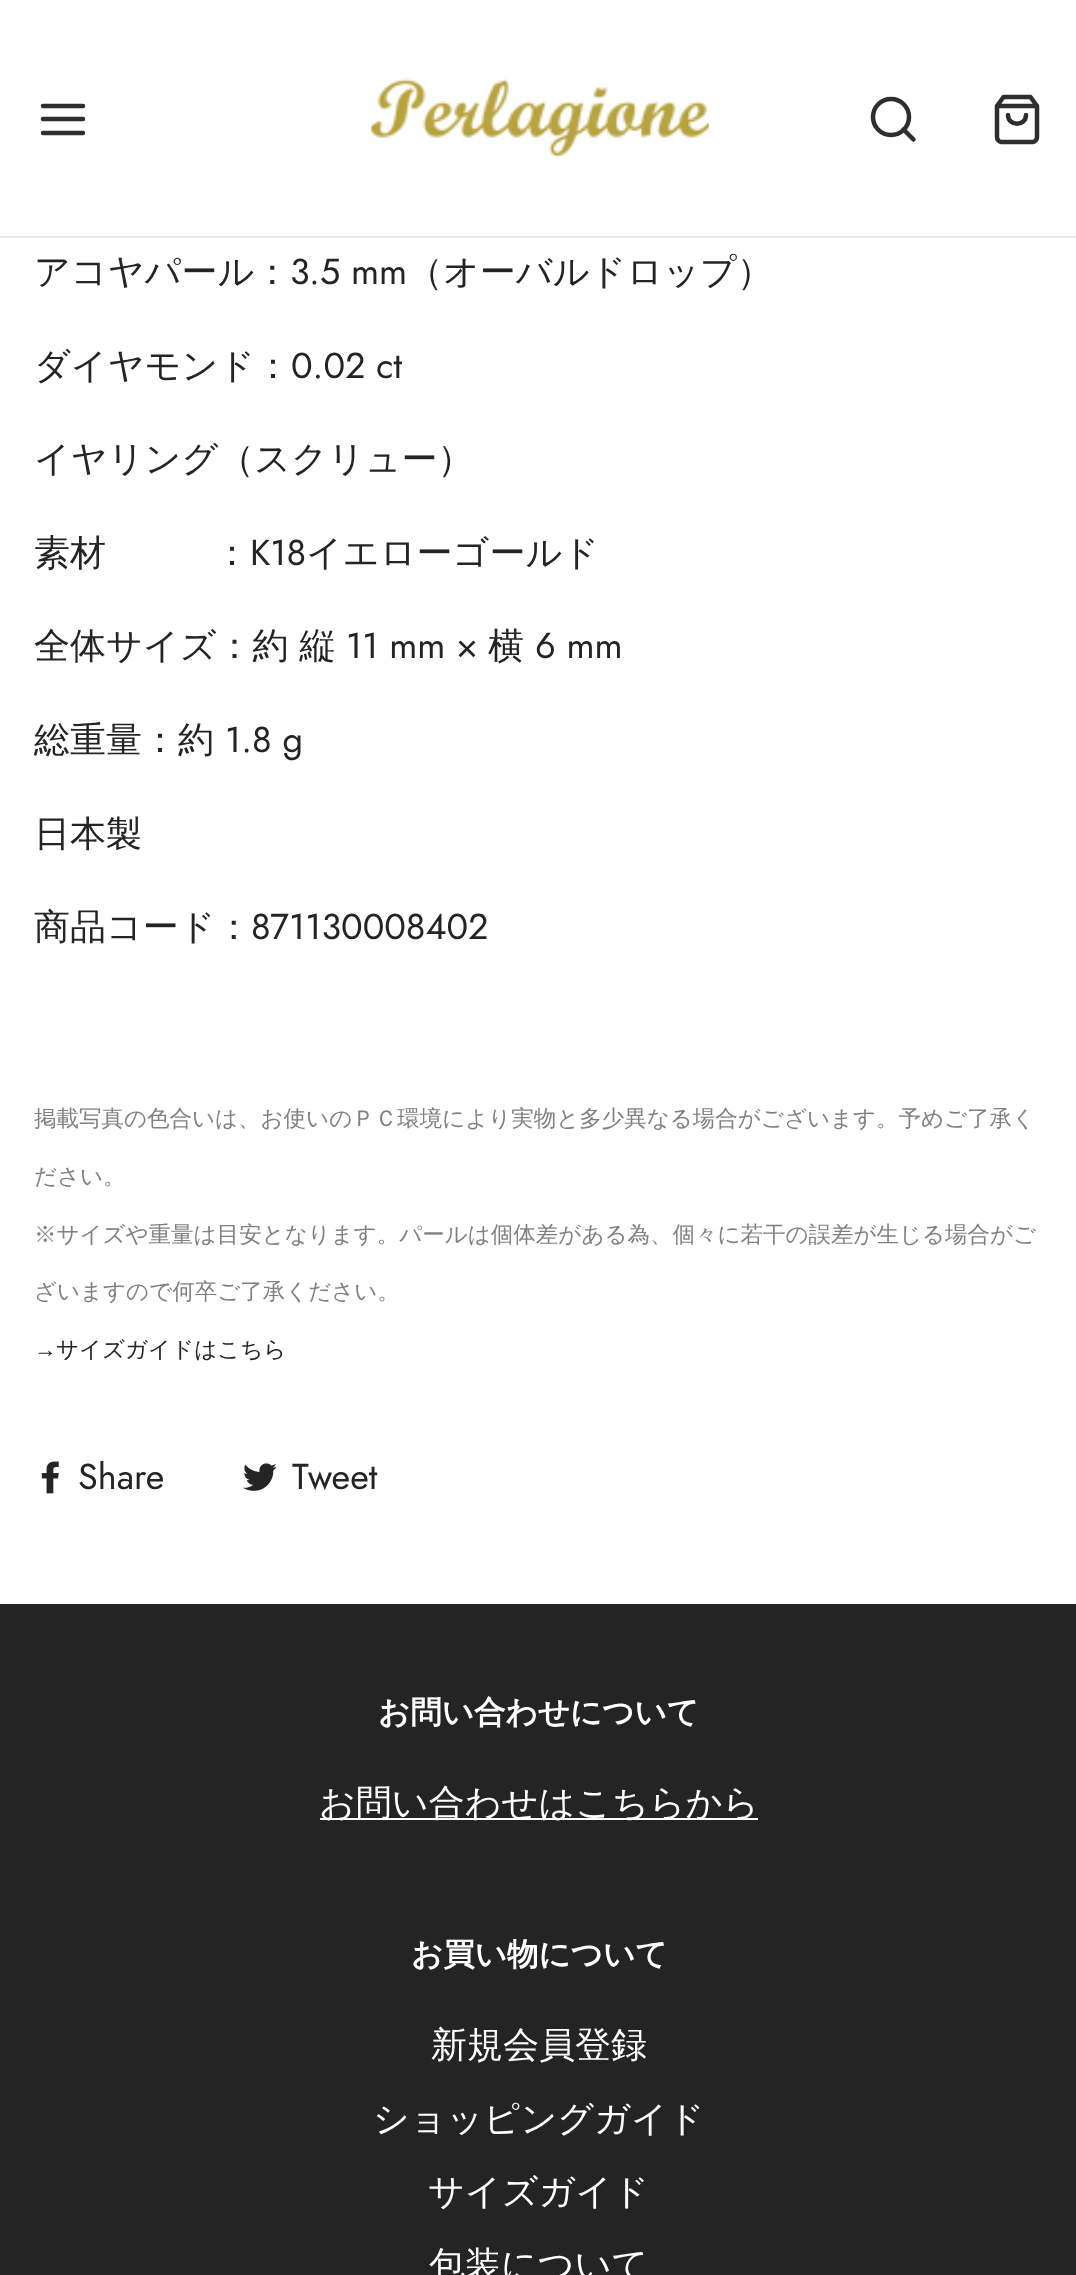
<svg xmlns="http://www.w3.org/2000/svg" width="1076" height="2275">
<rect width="100%" height="100%" fill="#fff"/>
<rect y="236" width="1076" height="2" fill="#eaeaea"/>
<path d="M43 119h40m-40-13h40m-40 27h40" fill="none" stroke="#2e2e2e" stroke-width="4.5" stroke-linecap="round" stroke-linejoin="round"/>
<image x="370" y="78" width="339" height="80" href="media/1.png"/>
<circle cx="891" cy="117" r="18" fill="none" stroke="#2e2e2e" stroke-width="4.5"/>
<path d="M913.5 139.5l-10-10" fill="none" stroke="#2e2e2e" stroke-width="4.5" stroke-linecap="round" stroke-linejoin="round"/>
<path d="M1003.5 97l-6.5 9v31c0 2.5 2 5 4 5h32c2 0 4-2.5 4-5v-31l-6.5-9zm-6.5 9h40m-11 9c0 11.5-18 11.5-18 0" fill="none" stroke="#2e2e2e" stroke-width="4.5" stroke-linecap="round" stroke-linejoin="round"/>
<text x="34" y="284" style="font-family:WenQuanYi Zen Hei;font-size:36px;font-weight:500;fill:#242424">アコヤパール：</text>
<text x="290" y="284" style="font-family:Jost;font-size:36px;fill:#242424">3.5 mm</text>
<text x="407" y="284" style="font-family:WenQuanYi Zen Hei;font-size:36px;font-weight:500;fill:#242424">（オーバルドロップ）</text>
<text x="34" y="378" style="font-family:WenQuanYi Zen Hei;font-size:36px;font-weight:500;fill:#242424">ダイヤモンド：</text>
<text x="291" y="378" style="font-family:Jost;font-size:36px;fill:#242424">0.02 ct</text>
<text x="34" y="471" style="font-family:WenQuanYi Zen Hei;font-size:36px;font-weight:500;fill:#242424">イヤリング（スクリュー）</text>
<text x="34" y="565" style="font-family:WenQuanYi Zen Hei;font-size:36px;font-weight:500;fill:#242424">素材　　　：</text>
<text x="250" y="565" style="font-family:Jost;font-size:36px;fill:#242424">K18</text>
<text x="306" y="565" style="font-family:WenQuanYi Zen Hei;font-size:36px;font-weight:500;fill:#242424">イエローゴールド</text>
<text x="34" y="658" style="font-family:WenQuanYi Zen Hei;font-size:36px;font-weight:500;fill:#242424">全体サイズ：約 縦</text>
<text x="346" y="658" style="font-family:Jost;font-size:36px;fill:#242424">11 mm ×</text>
<text x="488" y="658" style="font-family:WenQuanYi Zen Hei;font-size:36px;font-weight:500;fill:#242424">横</text>
<text x="535" y="658" style="font-family:Jost;font-size:36px;fill:#242424">6 mm</text>
<text x="34" y="752" style="font-family:WenQuanYi Zen Hei;font-size:36px;font-weight:500;fill:#242424">総重量：約</text>
<text x="225" y="752" style="font-family:Jost;font-size:36px;fill:#242424">1.8 g</text>
<text x="34" y="846" style="font-family:WenQuanYi Zen Hei;font-size:36px;font-weight:500;fill:#242424">日本製</text>
<text x="34" y="939" style="font-family:WenQuanYi Zen Hei;font-size:36px;font-weight:500;fill:#242424">商品コード：</text>
<text x="251" y="939" style="font-family:Jost;font-size:36px;fill:#242424">871130008402</text>
<text x="34" y="1126" style="font-family:WenQuanYi Zen Hei;font-size:22.5px;font-weight:500;fill:#808080">掲載写真の色合いは、お使いのＰＣ環境により実物と多少異なる場合がございます。予めご了承く</text>
<text x="34" y="1184" style="font-family:WenQuanYi Zen Hei;font-size:22.5px;font-weight:500;fill:#808080">ださい。</text>
<text x="34" y="1242" style="font-family:WenQuanYi Zen Hei;font-size:22.5px;font-weight:500;fill:#808080">※サイズや重量は目安となります。パールは個体差がある為、個々に若干の誤差が生じる場合がご</text>
<text x="34" y="1299" style="font-family:WenQuanYi Zen Hei;font-size:22.5px;font-weight:500;fill:#808080">ざいますので何卒ご了承ください。</text>
<text x="34" y="1357" style="font-family:Liberation Sans;font-size:22.5px;fill:#242424">→</text>
<text x="56" y="1357" style="font-family:WenQuanYi Zen Hei;font-size:22.5px;font-weight:500;fill:#242424">サイズガイドはこちら</text>
<image x="41" y="1461" width="18" height="33" href="media/2.png"/>
<text x="78" y="1489" style="font-family:Jost;font-size:36px;fill:#242424">Share</text>
<image x="243" y="1463" width="34" height="28" href="media/3.png"/>
<text x="292" y="1489" style="font-family:Jost;font-size:36px;fill:#242424">Tweet</text>
<rect y="1604" width="1076" height="671" fill="#242424"/>
<text x="378" y="1723" style="font-family:WenQuanYi Zen Hei;font-size:31.5px;font-weight:bold;fill:#fff">お問い合わせについて</text>
<rect x="320" y="1818" width="438" height="2" fill="#fff"/>
<text x="319" y="1815" style="font-family:WenQuanYi Zen Hei;font-size:36px;font-weight:500;fill:#fff">お問い合わせはこちらから</text>
<text x="411" y="1965" style="font-family:WenQuanYi Zen Hei;font-size:31.5px;font-weight:bold;fill:#fff">お買い物について</text>
<text x="431" y="2057" style="font-family:WenQuanYi Zen Hei;font-size:36px;font-weight:500;fill:#fff">新規会員登録</text>
<text x="373" y="2131" style="font-family:WenQuanYi Zen Hei;font-size:36px;font-weight:500;fill:#fff">ショッピングガイド</text>
<text x="428" y="2204" style="font-family:WenQuanYi Zen Hei;font-size:36px;font-weight:500;fill:#fff">サイズガイド</text>
<text x="429" y="2277" style="font-family:WenQuanYi Zen Hei;font-size:36px;font-weight:500;fill:#fff">包装について</text>
</svg>
